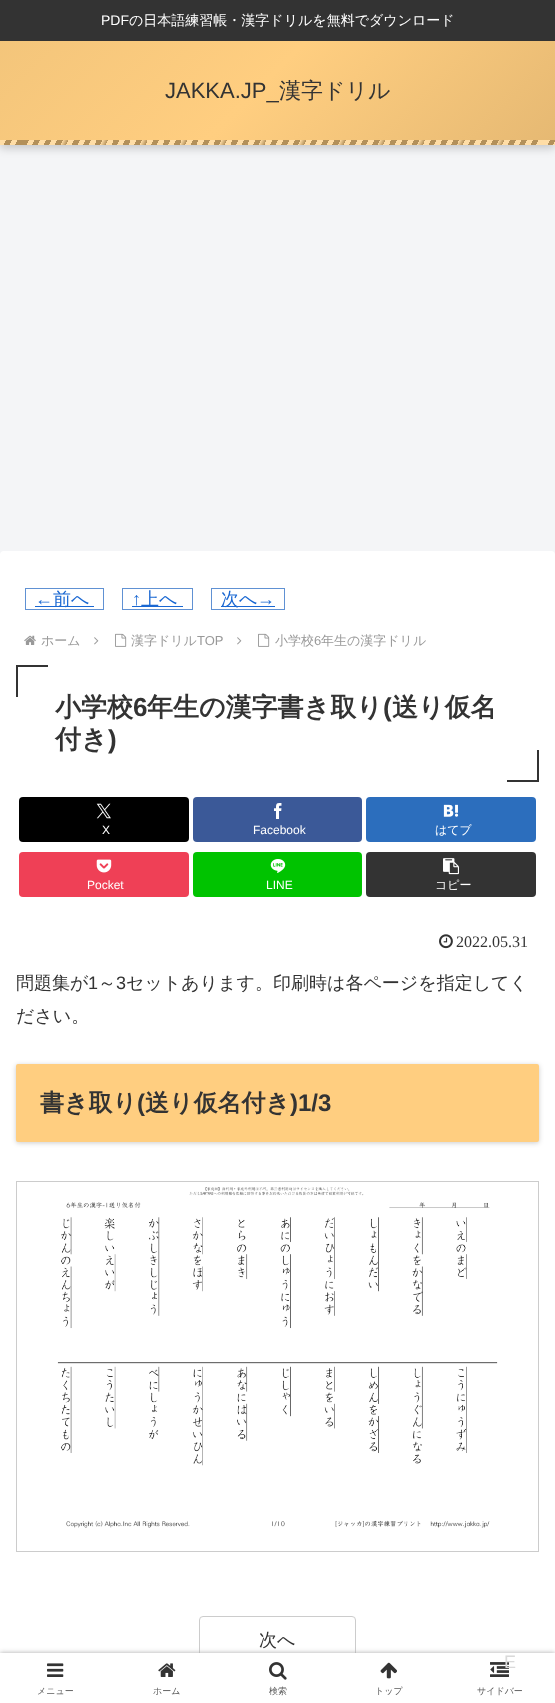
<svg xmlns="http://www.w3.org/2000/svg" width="555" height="1703">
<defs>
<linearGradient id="g1" gradientUnits="userSpaceOnUse" x1="104" y1="-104" x2="451" y2="244"><stop offset="0" stop-color="#f2c47a"/><stop offset="0.5" stop-color="#ffce80"/><stop offset="1" stop-color="#e6b973"/></linearGradient>
<linearGradient id="g2" gradientUnits="userSpaceOnUse" x1="49" y1="36" x2="514" y2="253"><stop offset="0" stop-color="#ffdda6"/><stop offset="0.01" stop-color="#ffdda6"/><stop offset="0.01" stop-color="#b3905a"/><stop offset="0.02" stop-color="#b3905a"/><stop offset="0.02" stop-color="#ffdda6"/><stop offset="0.03" stop-color="#ffdda6"/><stop offset="0.03" stop-color="#b3905a"/><stop offset="0.04" stop-color="#b3905a"/><stop offset="0.04" stop-color="#ffdda6"/><stop offset="0.04" stop-color="#b3905a"/><stop offset="0.05" stop-color="#b3905a"/><stop offset="0.05" stop-color="#ffdda6"/><stop offset="0.06" stop-color="#ffdda6"/><stop offset="0.06" stop-color="#b3905a"/><stop offset="0.07" stop-color="#b3905a"/><stop offset="0.07" stop-color="#ffdda6"/><stop offset="0.08" stop-color="#ffdda6"/><stop offset="0.08" stop-color="#b3905a"/><stop offset="0.09" stop-color="#b3905a"/><stop offset="0.09" stop-color="#ffdda6"/><stop offset="0.1" stop-color="#ffdda6"/><stop offset="0.1" stop-color="#b3905a"/><stop offset="0.11" stop-color="#b3905a"/><stop offset="0.11" stop-color="#ffdda6"/><stop offset="0.12" stop-color="#b3905a"/><stop offset="0.12" stop-color="#ffdda6"/><stop offset="0.13" stop-color="#ffdda6"/><stop offset="0.13" stop-color="#b3905a"/><stop offset="0.14" stop-color="#b3905a"/><stop offset="0.14" stop-color="#ffdda6"/><stop offset="0.15" stop-color="#ffdda6"/><stop offset="0.15" stop-color="#b3905a"/><stop offset="0.16" stop-color="#b3905a"/><stop offset="0.16" stop-color="#ffdda6"/><stop offset="0.17" stop-color="#ffdda6"/><stop offset="0.17" stop-color="#b3905a"/><stop offset="0.18" stop-color="#b3905a"/><stop offset="0.18" stop-color="#ffdda6"/><stop offset="0.19" stop-color="#b3905a"/><stop offset="0.19" stop-color="#ffdda6"/><stop offset="0.2" stop-color="#ffdda6"/><stop offset="0.2" stop-color="#b3905a"/><stop offset="0.21" stop-color="#b3905a"/><stop offset="0.21" stop-color="#ffdda6"/><stop offset="0.22" stop-color="#ffdda6"/><stop offset="0.22" stop-color="#b3905a"/><stop offset="0.23" stop-color="#b3905a"/><stop offset="0.23" stop-color="#ffdda6"/><stop offset="0.24" stop-color="#ffdda6"/><stop offset="0.24" stop-color="#b3905a"/><stop offset="0.25" stop-color="#b3905a"/><stop offset="0.25" stop-color="#ffdda6"/><stop offset="0.26" stop-color="#b3905a"/><stop offset="0.26" stop-color="#ffdda6"/><stop offset="0.27" stop-color="#ffdda6"/><stop offset="0.27" stop-color="#b3905a"/><stop offset="0.28" stop-color="#b3905a"/><stop offset="0.28" stop-color="#ffdda6"/><stop offset="0.29" stop-color="#ffdda6"/><stop offset="0.29" stop-color="#b3905a"/><stop offset="0.3" stop-color="#b3905a"/><stop offset="0.3" stop-color="#ffdda6"/><stop offset="0.31" stop-color="#ffdda6"/><stop offset="0.31" stop-color="#b3905a"/><stop offset="0.32" stop-color="#b3905a"/><stop offset="0.32" stop-color="#ffdda6"/><stop offset="0.33" stop-color="#b3905a"/><stop offset="0.33" stop-color="#ffdda6"/><stop offset="0.34" stop-color="#ffdda6"/><stop offset="0.34" stop-color="#b3905a"/><stop offset="0.35" stop-color="#b3905a"/><stop offset="0.35" stop-color="#ffdda6"/><stop offset="0.36" stop-color="#ffdda6"/><stop offset="0.36" stop-color="#b3905a"/><stop offset="0.37" stop-color="#b3905a"/><stop offset="0.37" stop-color="#ffdda6"/><stop offset="0.38" stop-color="#ffdda6"/><stop offset="0.38" stop-color="#b3905a"/><stop offset="0.39" stop-color="#b3905a"/><stop offset="0.39" stop-color="#ffdda6"/><stop offset="0.4" stop-color="#b3905a"/><stop offset="0.4" stop-color="#ffdda6"/><stop offset="0.41" stop-color="#ffdda6"/><stop offset="0.41" stop-color="#b3905a"/><stop offset="0.42" stop-color="#b3905a"/><stop offset="0.42" stop-color="#ffdda6"/><stop offset="0.43" stop-color="#ffdda6"/><stop offset="0.43" stop-color="#b3905a"/><stop offset="0.44" stop-color="#b3905a"/><stop offset="0.44" stop-color="#ffdda6"/><stop offset="0.45" stop-color="#ffdda6"/><stop offset="0.45" stop-color="#b3905a"/><stop offset="0.46" stop-color="#b3905a"/><stop offset="0.46" stop-color="#ffdda6"/><stop offset="0.47" stop-color="#b3905a"/><stop offset="0.47" stop-color="#ffdda6"/><stop offset="0.48" stop-color="#ffdda6"/><stop offset="0.48" stop-color="#b3905a"/><stop offset="0.49" stop-color="#b3905a"/><stop offset="0.49" stop-color="#ffdda6"/><stop offset="0.5" stop-color="#ffdda6"/><stop offset="0.5" stop-color="#b3905a"/><stop offset="0.51" stop-color="#b3905a"/><stop offset="0.51" stop-color="#ffdda6"/><stop offset="0.52" stop-color="#ffdda6"/><stop offset="0.52" stop-color="#b3905a"/><stop offset="0.53" stop-color="#b3905a"/><stop offset="0.53" stop-color="#ffdda6"/><stop offset="0.54" stop-color="#b3905a"/><stop offset="0.54" stop-color="#ffdda6"/><stop offset="0.55" stop-color="#ffdda6"/><stop offset="0.55" stop-color="#b3905a"/><stop offset="0.56" stop-color="#b3905a"/><stop offset="0.56" stop-color="#ffdda6"/><stop offset="0.57" stop-color="#ffdda6"/><stop offset="0.57" stop-color="#b3905a"/><stop offset="0.58" stop-color="#b3905a"/><stop offset="0.58" stop-color="#ffdda6"/><stop offset="0.59" stop-color="#ffdda6"/><stop offset="0.59" stop-color="#b3905a"/><stop offset="0.6" stop-color="#b3905a"/><stop offset="0.6" stop-color="#ffdda6"/><stop offset="0.61" stop-color="#b3905a"/><stop offset="0.61" stop-color="#ffdda6"/><stop offset="0.62" stop-color="#ffdda6"/><stop offset="0.62" stop-color="#b3905a"/><stop offset="0.63" stop-color="#b3905a"/><stop offset="0.63" stop-color="#ffdda6"/><stop offset="0.64" stop-color="#ffdda6"/><stop offset="0.64" stop-color="#b3905a"/><stop offset="0.65" stop-color="#b3905a"/><stop offset="0.65" stop-color="#ffdda6"/><stop offset="0.66" stop-color="#ffdda6"/><stop offset="0.66" stop-color="#b3905a"/><stop offset="0.67" stop-color="#b3905a"/><stop offset="0.67" stop-color="#ffdda6"/><stop offset="0.68" stop-color="#b3905a"/><stop offset="0.68" stop-color="#ffdda6"/><stop offset="0.69" stop-color="#ffdda6"/><stop offset="0.69" stop-color="#b3905a"/><stop offset="0.7" stop-color="#b3905a"/><stop offset="0.7" stop-color="#ffdda6"/><stop offset="0.71" stop-color="#ffdda6"/><stop offset="0.71" stop-color="#b3905a"/><stop offset="0.72" stop-color="#b3905a"/><stop offset="0.72" stop-color="#ffdda6"/><stop offset="0.73" stop-color="#ffdda6"/><stop offset="0.73" stop-color="#b3905a"/><stop offset="0.74" stop-color="#b3905a"/><stop offset="0.74" stop-color="#ffdda6"/><stop offset="0.75" stop-color="#b3905a"/><stop offset="0.75" stop-color="#ffdda6"/><stop offset="0.76" stop-color="#ffdda6"/><stop offset="0.76" stop-color="#b3905a"/><stop offset="0.77" stop-color="#b3905a"/><stop offset="0.77" stop-color="#ffdda6"/><stop offset="0.78" stop-color="#ffdda6"/><stop offset="0.78" stop-color="#b3905a"/><stop offset="0.79" stop-color="#b3905a"/><stop offset="0.79" stop-color="#ffdda6"/><stop offset="0.8" stop-color="#ffdda6"/><stop offset="0.8" stop-color="#b3905a"/><stop offset="0.81" stop-color="#b3905a"/><stop offset="0.81" stop-color="#ffdda6"/><stop offset="0.82" stop-color="#b3905a"/><stop offset="0.82" stop-color="#ffdda6"/><stop offset="0.83" stop-color="#ffdda6"/><stop offset="0.83" stop-color="#b3905a"/><stop offset="0.84" stop-color="#b3905a"/><stop offset="0.84" stop-color="#ffdda6"/><stop offset="0.85" stop-color="#ffdda6"/><stop offset="0.85" stop-color="#b3905a"/><stop offset="0.86" stop-color="#b3905a"/><stop offset="0.86" stop-color="#ffdda6"/><stop offset="0.87" stop-color="#ffdda6"/><stop offset="0.87" stop-color="#b3905a"/><stop offset="0.88" stop-color="#b3905a"/><stop offset="0.88" stop-color="#ffdda6"/><stop offset="0.89" stop-color="#b3905a"/><stop offset="0.89" stop-color="#ffdda6"/><stop offset="0.9" stop-color="#ffdda6"/><stop offset="0.9" stop-color="#b3905a"/><stop offset="0.91" stop-color="#b3905a"/><stop offset="0.91" stop-color="#ffdda6"/><stop offset="0.92" stop-color="#ffdda6"/><stop offset="0.92" stop-color="#b3905a"/><stop offset="0.93" stop-color="#b3905a"/><stop offset="0.93" stop-color="#ffdda6"/><stop offset="0.94" stop-color="#ffdda6"/><stop offset="0.94" stop-color="#b3905a"/><stop offset="0.95" stop-color="#b3905a"/><stop offset="0.95" stop-color="#ffdda6"/><stop offset="0.96" stop-color="#ffdda6"/><stop offset="0.96" stop-color="#b3905a"/><stop offset="0.96" stop-color="#ffdda6"/><stop offset="0.97" stop-color="#ffdda6"/><stop offset="0.97" stop-color="#b3905a"/><stop offset="0.98" stop-color="#b3905a"/><stop offset="0.98" stop-color="#ffdda6"/><stop offset="0.99" stop-color="#ffdda6"/><stop offset="0.99" stop-color="#b3905a"/><stop offset="1" stop-color="#b3905a"/></linearGradient>
</defs>
<rect width="100%" height="100%" fill="#f4f5f7"/>
<rect y="3" width="555" height="145" fill="#00000033" filter="blur(5px)"/>
<rect y="41" width="555" height="99" fill="url(#g1)"/>
<rect width="555" height="41" fill="#333"/>
<text x="101" y="25" style="font-family:Liberation Sans;font-size:14px;fill:#fff">PDF</text>
<text x="129" y="25" style="font-family:WenQuanYi Zen Hei;font-size:14px;font-weight:500;fill:#fff">の日本語練習帳・漢字ドリルを無料でダウンロード</text>
<text x="165" y="98" style="font-family:Liberation Sans;font-size:22px;fill:#333">JAKKA.JP_</text>
<text x="279" y="98" style="font-family:WenQuanYi Zen Hei;font-size:22px;font-weight:500;fill:#333">漢字ドリル</text>
<rect y="140" width="555" height="5" fill="url(#g2)"/>
<rect y="551" width="555" height="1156" rx="4" fill="#fff"/>
<rect x="25.5" y="588.5" width="78" height="21" fill="none" stroke="#6091d3"/>
<text x="35" y="605" style="font-family:Liberation Sans;font-size:18px;fill:#1967d2">←</text>
<rect x="35" y="606" width="59" height="1" fill="#1967d2"/>
<text x="53" y="605" style="font-family:WenQuanYi Zen Hei;font-size:18px;font-weight:500;fill:#1967d2">前へ</text>
<rect x="122.5" y="588.5" width="70" height="21" fill="none" stroke="#6091d3"/>
<text x="132" y="605" style="font-family:Liberation Sans;font-size:18px;fill:#1967d2">↑</text>
<rect x="132" y="606" width="51" height="1" fill="#1967d2"/>
<text x="141" y="605" style="font-family:WenQuanYi Zen Hei;font-size:18px;font-weight:500;fill:#1967d2">上へ</text>
<rect x="211.5" y="588.5" width="73" height="21" fill="none" stroke="#6091d3"/>
<rect x="221" y="606" width="54" height="1" fill="#1967d2"/>
<text x="221" y="605" style="font-family:WenQuanYi Zen Hei;font-size:18px;font-weight:500;fill:#1967d2">次へ</text>
<text x="257" y="605" style="font-family:Liberation Sans;font-size:18px;fill:#1967d2">→</text>
<image x="24" y="635" width="12" height="10" href="media/1.png"/>
<text x="41" y="645" style="font-family:WenQuanYi Zen Hei;font-size:13px;font-weight:500;fill:#999">ホーム</text>
<image x="94" y="637" width="5" height="8" href="media/2.png"/>
<image x="115" y="633" width="12" height="14" href="media/3.png"/>
<text x="131" y="645" style="font-family:WenQuanYi Zen Hei;font-size:13px;font-weight:500;fill:#999">漢字ドリル</text>
<text x="197" y="645" style="font-family:Liberation Sans;font-size:13px;fill:#999">TOP</text>
<image x="237" y="637" width="5" height="8" href="media/2.png"/>
<image x="258" y="633" width="12" height="14" href="media/3.png"/>
<text x="275" y="645" style="font-family:WenQuanYi Zen Hei;font-size:13px;font-weight:500;fill:#999">小学校</text>
<text x="314" y="645" style="font-family:Liberation Sans;font-size:13px;fill:#999">6</text>
<text x="321" y="645" style="font-family:WenQuanYi Zen Hei;font-size:13px;font-weight:500;fill:#999">年生の漢字ドリル</text>
<rect x="16" y="665" width="32" height="2" fill="#333"/>
<rect x="16" y="665" width="2" height="32" fill="#333"/>
<text x="55" y="716" style="font-family:WenQuanYi Zen Hei;font-size:26px;font-weight:bold;fill:#333">小学校</text>
<text x="133" y="716" style="font-family:Liberation Sans;font-size:26px;font-weight:bold;fill:#333">6</text>
<text x="147" y="716" style="font-family:WenQuanYi Zen Hei;font-size:26px;font-weight:bold;fill:#333">年生の漢字書き取り</text>
<text x="383" y="716" style="font-family:Liberation Sans;font-size:26px;font-weight:bold;fill:#333">(</text>
<text x="392" y="716" style="font-family:WenQuanYi Zen Hei;font-size:26px;font-weight:bold;fill:#333">送り仮名</text>
<text x="55" y="748" style="font-family:WenQuanYi Zen Hei;font-size:26px;font-weight:bold;fill:#333">付き</text>
<text x="108" y="748" style="font-family:Liberation Sans;font-size:26px;font-weight:bold;fill:#333">)</text>
<rect x="537" y="750" width="2" height="32" fill="#333"/>
<rect x="507" y="780" width="32" height="2" fill="#333"/>
<rect x="19" y="797" width="170" height="45" rx="4" fill="#000"/>
<image x="96" y="803" width="15" height="16" href="media/4.png"/>
<text x="102" y="834" style="font-family:Liberation Sans;font-size:12px;fill:#fff">X</text>
<rect x="193" y="797" width="169" height="45" rx="4" fill="#3b5998"/>
<image x="274" y="803" width="8" height="16" href="media/5.png"/>
<text x="253" y="834" style="font-family:Liberation Sans;font-size:12px;fill:#fff">Facebook</text>
<rect x="366" y="797" width="170" height="45" rx="4" fill="#2c6ebd"/>
<image x="443" y="804" width="16" height="13" href="media/6.png"/>
<text x="435" y="834" style="font-family:WenQuanYi Zen Hei;font-size:12px;font-weight:500;fill:#fff">はてブ</text>
<rect x="19" y="852" width="170" height="45" rx="4" fill="#ef4056"/>
<image x="96" y="859" width="16" height="14" href="media/7.png"/>
<text x="87" y="889" style="font-family:Liberation Sans;font-size:12px;fill:#fff">Pocket</text>
<rect x="193" y="852" width="169" height="45" rx="4" fill="#00c300"/>
<image x="270" y="859" width="16" height="14" href="media/8.png"/>
<text x="266" y="889" style="font-family:Liberation Sans;font-size:12px;fill:#fff">LINE</text>
<rect x="366" y="852" width="170" height="45" rx="4" fill="#333"/>
<image x="443" y="858" width="16" height="17" href="media/9.png"/>
<text x="435" y="889" style="font-family:WenQuanYi Zen Hei;font-size:12px;font-weight:500;fill:#fff">コピー</text>
<image x="439" y="934" width="14" height="15" href="media/10.png"/>
<text x="456" y="947" style="font-family:Liberation Serif;font-size:16px;fill:#333">2022.05.31</text>
<text x="16" y="989" style="font-family:WenQuanYi Zen Hei;font-size:18px;font-weight:500;fill:#333">問題集が</text>
<text x="88" y="989" style="font-family:Liberation Sans;font-size:18px;fill:#333">1</text>
<text x="98" y="989" style="font-family:WenQuanYi Zen Hei;font-size:18px;font-weight:500;fill:#333">～</text>
<text x="116" y="989" style="font-family:Liberation Sans;font-size:18px;fill:#333">3</text>
<text x="126" y="989" style="font-family:WenQuanYi Zen Hei;font-size:18px;font-weight:500;fill:#333">セットあります。印刷時は各ページを指定してく</text>
<text x="16" y="1022" style="font-family:WenQuanYi Zen Hei;font-size:18px;font-weight:500;fill:#333">ださい。</text>
<rect x="16" y="1065" width="523" height="78" rx="2" fill="#00000033" filter="blur(2.5px)"/>
<rect x="16" y="1064" width="523" height="78" rx="2" fill="#ffce80"/>
<text x="40" y="1111" style="font-family:WenQuanYi Zen Hei;font-size:24px;font-weight:bold;fill:#333">書き取り</text>
<text x="137" y="1111" style="font-family:Liberation Sans;font-size:24px;font-weight:bold;fill:#333">(</text>
<text x="145" y="1111" style="font-family:WenQuanYi Zen Hei;font-size:24px;font-weight:bold;fill:#333">送り仮名付き</text>
<text x="290" y="1111" style="font-family:Liberation Sans;font-size:24px;font-weight:bold;fill:#333">)1/3</text>
<rect x="16.5" y="1181.5" width="522" height="370" fill="none" stroke="#ccc"/>
<image x="57" y="1187" width="441" height="341" href="media/11.png"/>
<rect x="199.5" y="1616.5" width="156" height="45" rx="3.5" fill="none" stroke="#ccc"/>
<text x="259" y="1646" style="font-family:WenQuanYi Zen Hei;font-size:18px;font-weight:500;fill:#333">次へ</text>
<rect y="1653" width="555" height="50" fill="#a9a9a9" filter="blur(2.5px)"/>
<rect y="1653" width="555" height="50" fill="#fff"/>
<image x="490" y="1662" width="19" height="15" href="media/16.png"/>
<text x="504" y="1668" style="font-family:Liberation Sans;font-size:18px;fill:#d9d9d9">E</text>
<image x="47" y="1663" width="17" height="14" href="media/12.png"/>
<text x="37" y="1694" style="font-family:WenQuanYi Zen Hei;font-size:9px;font-weight:500;fill:#5c5c5c">メニュー</text>
<image x="158" y="1663" width="18" height="14" href="media/13.png"/>
<text x="153" y="1694" style="font-family:WenQuanYi Zen Hei;font-size:9px;font-weight:500;fill:#5c5c5c">ホーム</text>
<image x="269" y="1662" width="18" height="18" href="media/14.png"/>
<text x="269" y="1694" style="font-family:WenQuanYi Zen Hei;font-size:9px;font-weight:500;fill:#5c5c5c">検索</text>
<image x="380" y="1662" width="17" height="17" href="media/15.png"/>
<text x="375" y="1694" style="font-family:WenQuanYi Zen Hei;font-size:9px;font-weight:500;fill:#5c5c5c">トップ</text>
<text x="477" y="1694" style="font-family:WenQuanYi Zen Hei;font-size:9px;font-weight:500;fill:#5c5c5c">サイドバー</text>
</svg>
